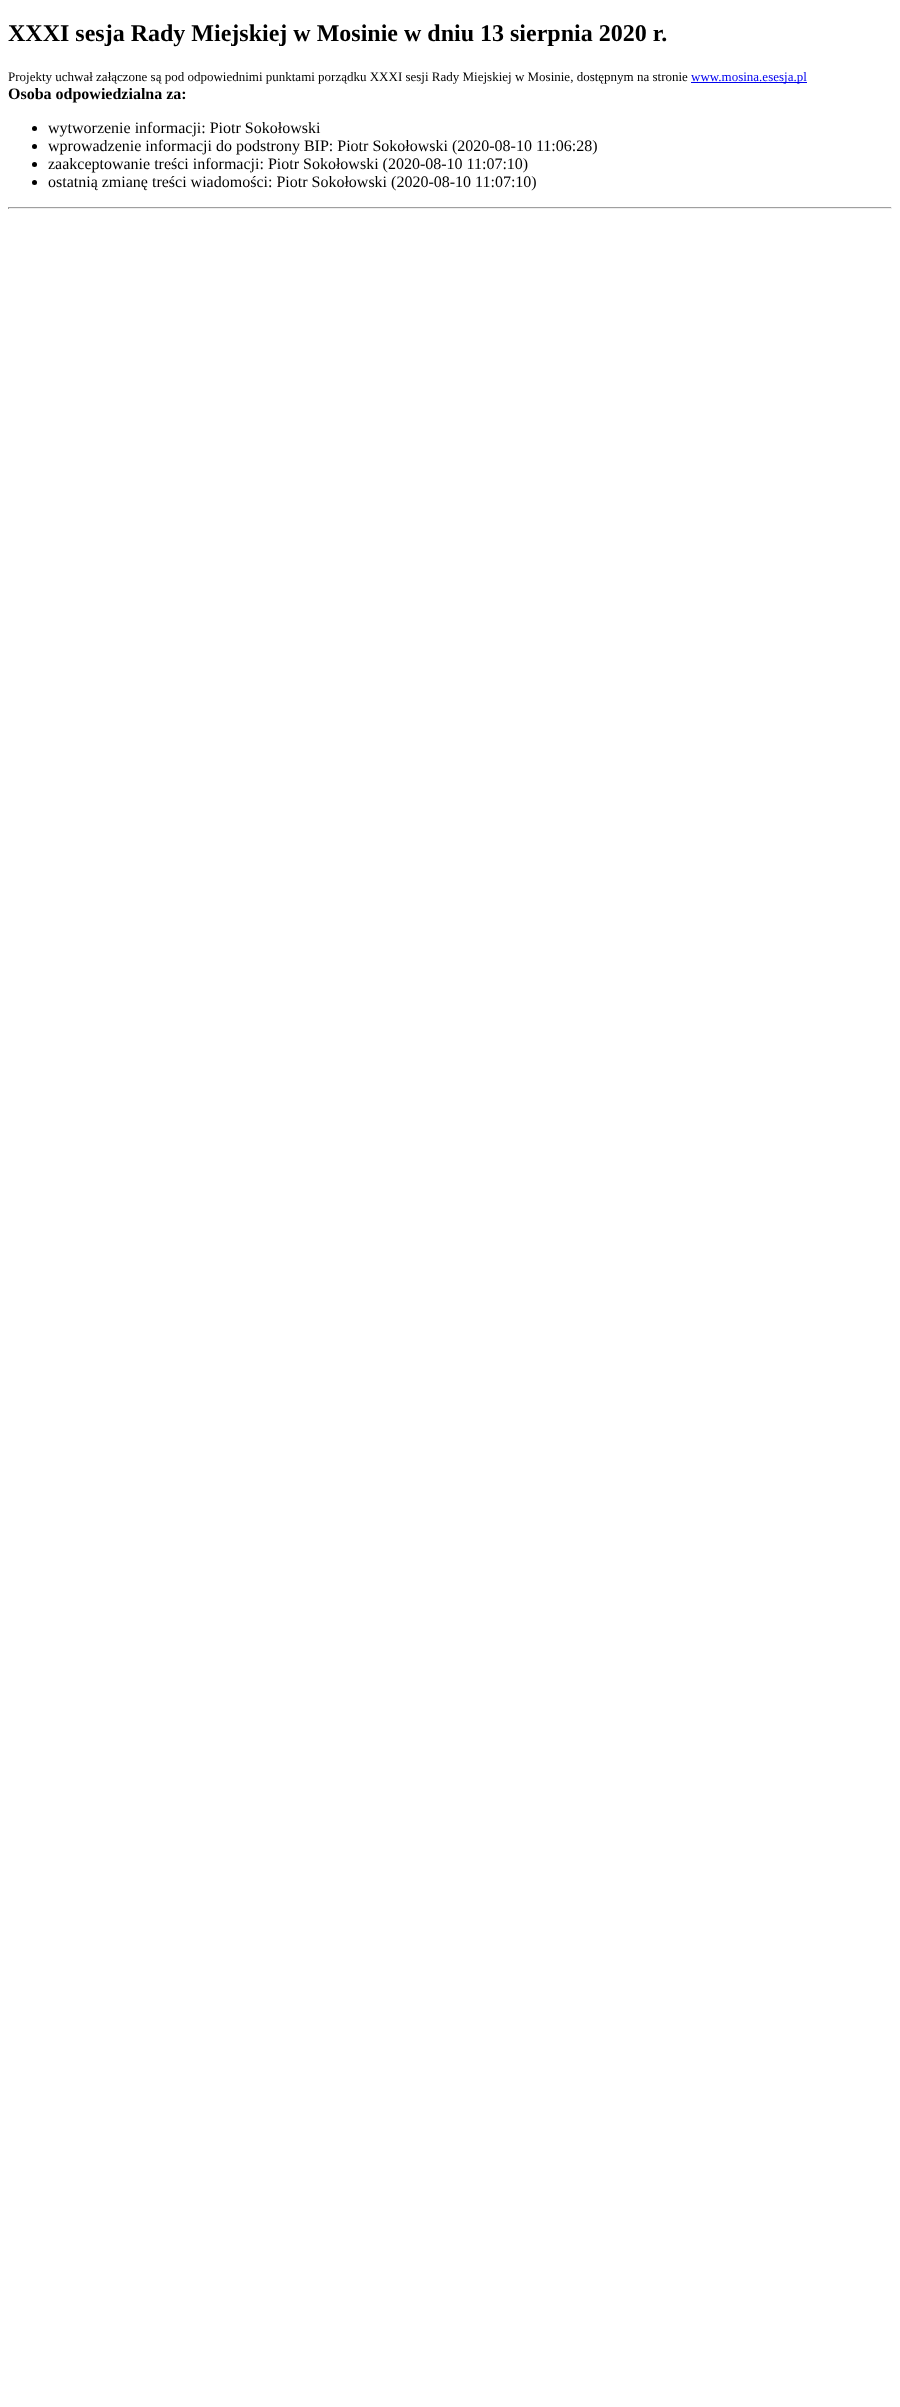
<svg xmlns="http://www.w3.org/2000/svg" width="900" height="2407">
<rect width="100%" height="100%" fill="#fff"/>
<text x="8" y="41" style="font-family:Liberation Serif;font-size:24px;font-weight:bold;fill:#000">XXXI sesja Rady Miejskiej w Mosinie w dniu 13 sierpnia 2020 r.</text>
<text x="8" y="81" style="font-family:Liberation Serif;font-size:13px;fill:#000">Projekty uchwał załączone są pod odpowiednimi punktami porządku XXXI sesji Rady Miejskiej w Mosinie, dostępnym na stronie</text>
<rect x="691" y="82" width="116" height="1" fill="#00e"/>
<text x="691" y="81" style="font-family:Liberation Serif;font-size:13px;fill:#00e">www.mosina.esesja.pl</text>
<text x="8" y="99" style="font-family:Liberation Serif;font-size:16px;font-weight:bold;fill:#000">Osoba odpowiedzialna za:</text>
<circle cx="34.5" cy="128.5" r="2.5" fill="#000"/>
<text x="48" y="133" style="font-family:Liberation Serif;font-size:16px;fill:#000">wytworzenie informacji: Piotr Sokołowski</text>
<circle cx="34.5" cy="146.5" r="2.5" fill="#000"/>
<text x="48" y="151" style="font-family:Liberation Serif;font-size:16px;fill:#000">wprowadzenie informacji do podstrony BIP: Piotr Sokołowski (2020-08-10 11:06:28)</text>
<circle cx="34.5" cy="164.5" r="2.5" fill="#000"/>
<text x="48" y="169" style="font-family:Liberation Serif;font-size:16px;fill:#000">zaakceptowanie treści informacji: Piotr Sokołowski (2020-08-10 11:07:10)</text>
<circle cx="34.5" cy="182.5" r="2.5" fill="#000"/>
<text x="48" y="187" style="font-family:Liberation Serif;font-size:16px;fill:#000">ostatnią zmianę treści wiadomości: Piotr Sokołowski (2020-08-10 11:07:10)</text>
<rect x="8" y="207" width="884" height="1" fill="#9f9f9f"/>
<rect x="891" y="207" width="1" height="2" fill="#eee"/>
<rect x="8" y="208" width="884" height="1" fill="#eee"/>
<rect x="8" y="207" width="1" height="2" fill="#9f9f9f"/>
</svg>
